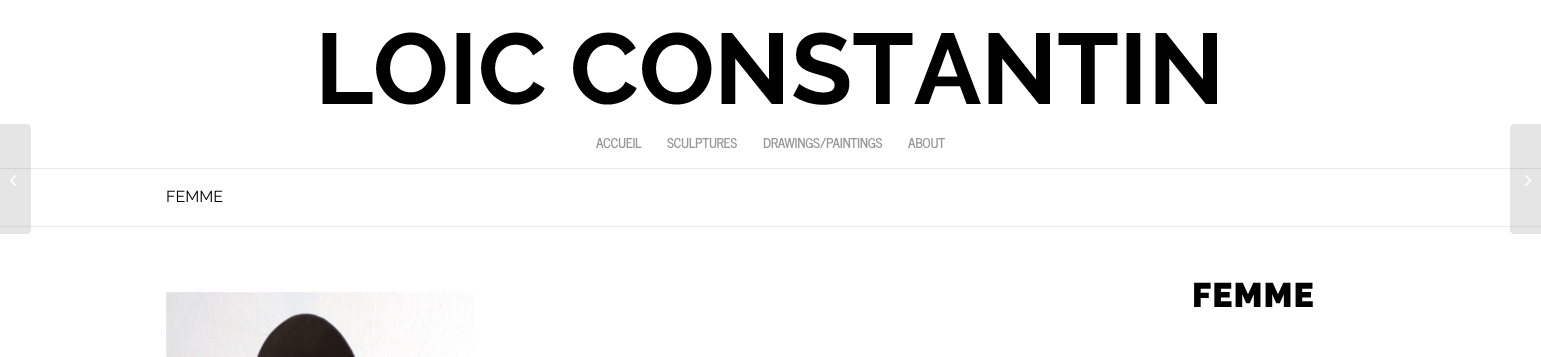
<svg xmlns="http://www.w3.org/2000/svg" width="1541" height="357">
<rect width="100%" height="100%" fill="#fff"/>
<rect y="168" width="1541" height="1" fill="#ebebeb"/>
<rect y="226" width="1541" height="1" fill="#ebebeb"/>
<path d="M0 124h27c2 0 4 2 4 4v102c0 2-2 4-4 4h-27z" fill="#0000001a"/>
<image x="10" y="175" width="7" height="11" href="media/1.png"/>
<image x="322" y="32" width="895" height="73" href="media/2.png"/>
<text x="596" y="148" style="font-family:News Cycle;font-size:13px;font-weight:bold;fill:#969696">ACCUEIL</text>
<text x="667" y="148" style="font-family:News Cycle;font-size:13px;font-weight:bold;fill:#969696">SCULPTURES</text>
<text x="763" y="148" style="font-family:News Cycle;font-size:13px;font-weight:bold;fill:#969696">DRAWINGS/PAINTINGS</text>
<text x="908" y="148" style="font-family:News Cycle;font-size:13px;font-weight:bold;fill:#969696">ABOUT</text>
<path d="M1514 124h27v110h-27c-2 0-4-2-4-4v-102c0-2 2-4 4-4z" fill="#0000001a"/>
<image x="1525" y="175" width="7" height="11" href="media/3.png"/>
<text x="166" y="202" style="font-family:Raleway;font-size:16px;fill:#000">FEMME</text>
<image x="166" y="292" width="308" height="65" href="media/4.png"/>
<text x="1192" y="307" style="font-family:Raleway;font-size:34px;font-weight:900;letter-spacing:1px;fill:#000">FEMME</text>
</svg>
